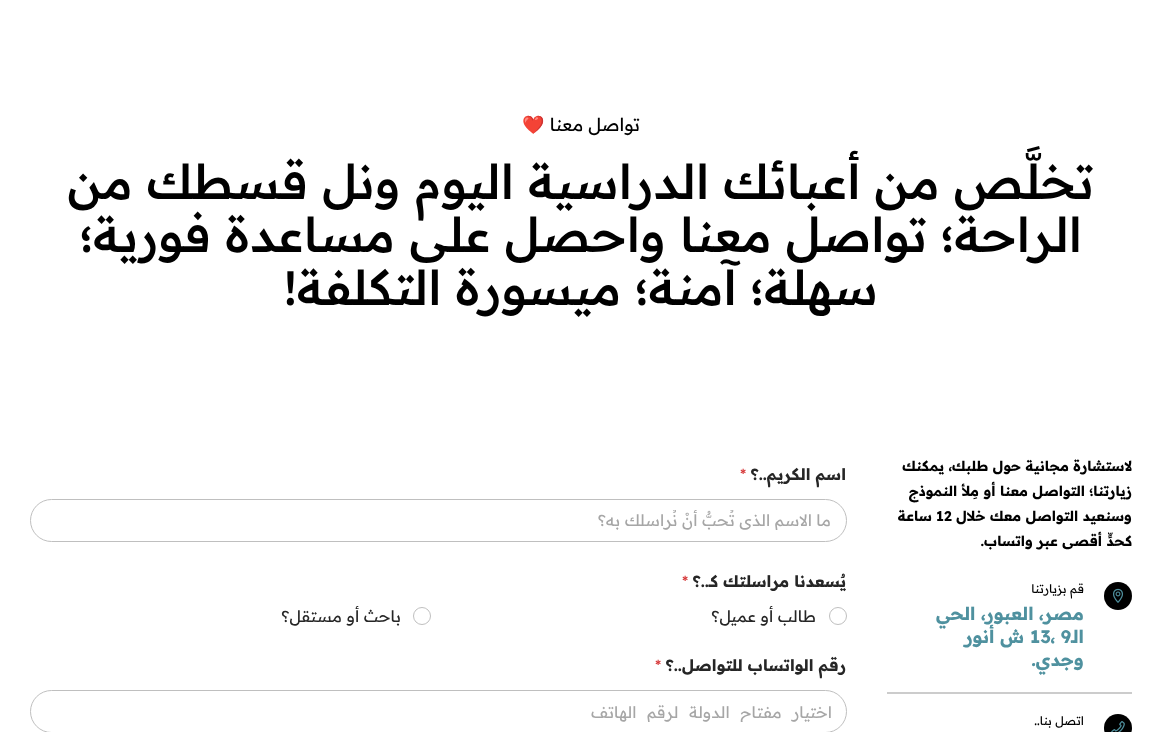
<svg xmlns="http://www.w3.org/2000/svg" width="1162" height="732">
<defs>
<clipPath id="clip1"><rect x="45" y="510" width="787" height="20"/></clipPath>
<clipPath id="clip2"><rect x="45" y="702" width="787" height="20"/></clipPath>
</defs>
<rect width="100%" height="100%" fill="#fff"/>
<text x="640" y="131" style="font-family:Readex Pro;font-size:18px;direction:rtl;fill:#000">تواصل معنا</text>
<text x="545" y="131" style="font-family:Noto Color Emoji;font-size:18px;direction:rtl;fill:#000">❤️</text>
<text x="1094" y="199" style="font-family:Readex Pro;font-size:48px;font-weight:500;direction:rtl;fill:#000">تخلَّص من أعبائك الدراسية اليوم ونل قسطك من</text>
<text x="1082" y="252" style="font-family:Readex Pro;font-size:48px;font-weight:500;direction:rtl;fill:#000">الراحة؛</text>
<text x="927" y="252" style="font-family:Readex Pro;font-size:48px;font-weight:500;direction:rtl;fill:#000">تواصل معنا</text>
<text x="666" y="252" style="font-family:Readex Pro;font-size:48px;font-weight:500;direction:rtl;fill:#000">واحصل على</text>
<text x="395" y="252" style="font-family:Readex Pro;font-size:48px;font-weight:500;direction:rtl;fill:#000">مساعدة فورية؛</text>
<text x="878" y="305" style="font-family:Readex Pro;font-size:48px;font-weight:500;direction:rtl;fill:#000">سهلة؛ آمنة؛ ميسورة التكلفة!</text>
<text x="1132" y="471" style="font-family:Readex Pro;font-size:14px;font-weight:bold;direction:rtl;fill:#000">لاستشارة مجانية حول طلبك، يمكنك</text>
<text x="1132" y="496" style="font-family:Readex Pro;font-size:14px;font-weight:bold;direction:rtl;fill:#000">زيارتنا؛ التواصل معنا أو مِلأ النموذج</text>
<text x="1132" y="521" style="font-family:Readex Pro;font-size:14px;font-weight:bold;direction:rtl;fill:#000">وسنعيد التواصل معك خلال</text>
<text x="936" y="521" style="font-family:Readex Pro;font-size:14px;font-weight:bold;fill:#000">12</text>
<text x="932" y="521" style="font-family:Readex Pro;font-size:14px;font-weight:bold;direction:rtl;fill:#000">ساعة</text>
<text x="1132" y="546" style="font-family:Readex Pro;font-size:14px;font-weight:bold;direction:rtl;fill:#000">كحدٍّ أقصى عبر واتساب.</text>
<circle cx="1118" cy="596" r="14" fill="#000"/>
<image x="1113" y="588" width="10" height="15" href="media/1.png"/>
<text x="1084" y="593" style="font-family:Readex Pro;font-size:12px;direction:rtl;fill:#000">قم بزيارتنا</text>
<text x="1084" y="620" style="font-family:Readex Pro;font-size:18px;font-weight:bold;direction:rtl;fill:#4f919f">مصر، العبور، الحي</text>
<text x="1030" y="643" style="font-family:Readex Pro;font-size:18px;font-weight:bold;fill:#4f919f">13، 9</text>
<text x="1084" y="643" style="font-family:Readex Pro;font-size:18px;font-weight:bold;direction:rtl;fill:#4f919f">الـ</text>
<text x="1024" y="643" style="font-family:Readex Pro;font-size:18px;font-weight:bold;direction:rtl;fill:#4f919f">ش أنور</text>
<text x="1084" y="666" style="font-family:Readex Pro;font-size:18px;font-weight:bold;direction:rtl;fill:#4f919f">وجدي.</text>
<rect x="887" y="692" width="245" height="2" fill="#ccc"/>
<circle cx="1118" cy="728" r="14" fill="#000"/>
<image x="1111" y="721" width="14" height="11" href="media/2.png"/>
<text x="1084" y="725" style="font-family:Readex Pro;font-size:12px;direction:rtl;fill:#000">اتصل بنا..</text>
<text x="846" y="480" style="font-family:Readex Pro;font-size:16px;font-weight:bold;direction:rtl;fill:#262626">اسم الكريم..؟</text>
<text x="740" y="480" style="font-family:Readex Pro;font-size:16px;fill:#d63637">*</text>
<rect x="30.5" y="499.5" width="816" height="42" rx="21" fill="none" stroke="#bfbfbf"/>
<g clip-path="url(#clip1)">
<text x="831" y="526" style="font-family:Readex Pro;font-size:16px;direction:rtl;fill:#a6a6a6">ما الاسم الذي تُحبُّ أنْ نُراسلك بِه؟</text>
</g>
<text x="846" y="587" style="font-family:Readex Pro;font-size:16px;font-weight:bold;direction:rtl;fill:#262626">يٌسعدنا مراسلتك كـ..؟</text>
<text x="682" y="587" style="font-family:Readex Pro;font-size:16px;fill:#d63637">*</text>
<circle cx="838" cy="616" r="8.5" fill="none" stroke="#bfbfbf"/>
<text x="816" y="622" style="font-family:Readex Pro;font-size:16px;direction:rtl;fill:#262626">طالب أو عميل؟</text>
<circle cx="422" cy="616" r="8.5" fill="none" stroke="#bfbfbf"/>
<text x="401" y="622" style="font-family:Readex Pro;font-size:16px;direction:rtl;fill:#262626">باحث أو مستقل؟</text>
<text x="846" y="671" style="font-family:Readex Pro;font-size:16px;font-weight:bold;direction:rtl;fill:#262626">رقم الواتساب للتواصل..؟</text>
<text x="655" y="671" style="font-family:Readex Pro;font-size:16px;fill:#d63637">*</text>
<rect x="30.5" y="690.5" width="816" height="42" rx="21" fill="none" stroke="#bfbfbf"/>
<g clip-path="url(#clip2)">
<text x="832" y="718" word-spacing="6" style="font-family:Readex Pro;font-size:16px;direction:rtl;fill:#a6a6a6">اختيار مفتاح الدولة لرقم الهاتف</text>
</g>
</svg>
